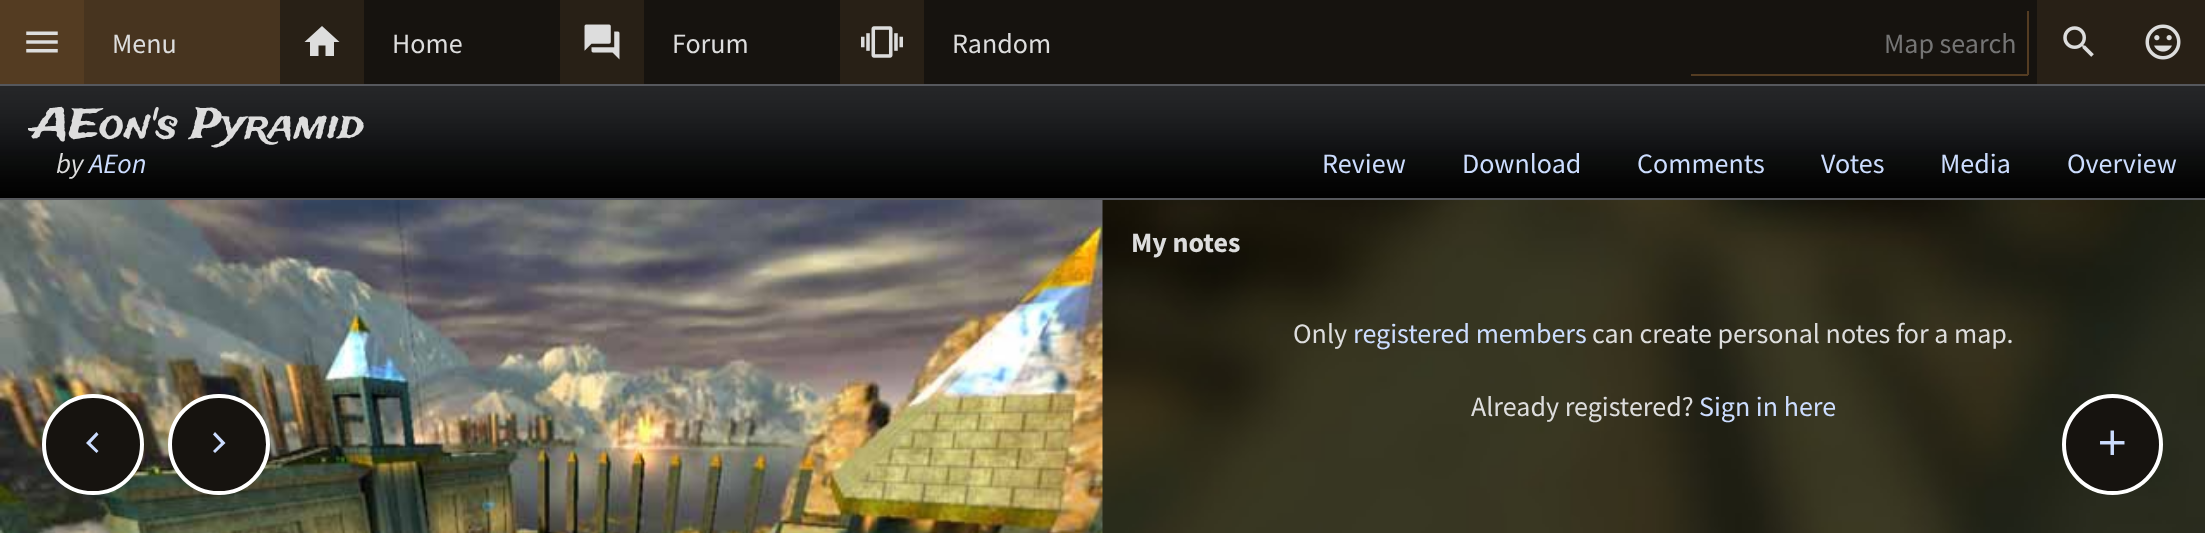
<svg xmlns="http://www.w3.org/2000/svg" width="2205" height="533">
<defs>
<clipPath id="clip1"><rect x="28" y="86" width="2177" height="112"/></clipPath>
</defs>
<rect width="100%" height="100%" fill="#fff"/>
<rect x="364" width="1673" height="84" fill="#16130f"/>
<rect width="84" height="84" fill="#543c22"/>
<image x="26" y="31" width="32" height="22" href="media/1.png"/>
<rect x="84" width="196" height="84" fill="#47341f"/>
<text x="112" y="53" style="font-family:Source Sans Pro;font-size:28px;fill:#ddd">Menu</text>
<rect x="280" width="84" height="84" fill="#282016"/>
<path d="M318.5 56h-8.5v-14h-5.5l17.5-16l17.5 16h-5.5v14h-8.5v-10.5h-7z" fill="#ddd"/>
<text x="392" y="53" style="font-family:Source Sans Pro;font-size:28px;fill:#ddd">Home</text>
<rect x="560" width="84" height="84" fill="#282016"/>
<image x="584" y="24" width="36" height="36" href="media/2.png"/>
<text x="672" y="53" style="font-family:Source Sans Pro;font-size:28px;fill:#ddd">Forum</text>
<rect x="840" width="84" height="84" fill="#282016"/>
<image x="861" y="26" width="42" height="32" href="media/3.png"/>
<text x="952" y="53" style="font-family:Source Sans Pro;font-size:28px;fill:#ddd">Random</text>
<rect x="2027" y="11" width="2" height="64" fill="#543c22"/>
<rect x="1691" y="74" width="337" height="2" fill="#543c22"/>
<text x="1884" y="53" style="font-family:Source Sans Pro;font-size:28px;fill:#757575">Map search</text>
<rect x="2037" width="168" height="84" fill="#282016"/>
<image x="2063" y="26" width="31" height="31" href="media/4.png"/>
<image x="2145" y="24" width="36" height="36" href="media/5.png"/>
<image x="0" y="86" width="2205" height="112" href="media/6.png"/>
<rect y="84" width="2205" height="2" fill="#56585d"/>
<rect y="198" width="2205" height="2" fill="#56585d"/>
<g clip-path="url(#clip1)">
<text x="32" y="138" style="font-family:Trade Winds;font-size:42px;fill:#ddd">AEon's Pyramid</text>
</g>
<text x="56" y="173" style="font-family:Source Sans Pro;font-size:28px;font-style:italic;fill:#ddd">by</text>
<text x="89" y="173" style="font-family:Source Sans Pro;font-size:28px;font-style:italic;fill:#cdf">AEon</text>
<text x="1322" y="173" style="font-family:Source Sans Pro;font-size:28px;fill:#cdf">Review</text>
<text x="1462" y="173" style="font-family:Source Sans Pro;font-size:28px;fill:#cdf">Download</text>
<text x="1637" y="173" style="font-family:Source Sans Pro;font-size:28px;fill:#cdf">Comments</text>
<text x="1821" y="173" style="font-family:Source Sans Pro;font-size:28px;fill:#cdf">Votes</text>
<text x="1940" y="173" style="font-family:Source Sans Pro;font-size:28px;fill:#cdf">Media</text>
<text x="2067" y="173" style="font-family:Source Sans Pro;font-size:28px;fill:#cdf">Overview</text>
<image x="1102" y="200" width="1103" height="333" href="media/7.png"/>
<image x="0" y="200" width="1103" height="333" href="media/8.png"/>
<text x="1131" y="252" style="font-family:Source Sans Pro;font-size:28px;font-weight:bold;fill:#ddd">My notes</text>
<text x="1293" y="343" style="font-family:Source Sans Pro;font-size:28px;fill:#ddd">Only</text>
<text x="1353" y="343" style="font-family:Source Sans Pro;font-size:28px;fill:#cdf">registered members</text>
<text x="1592" y="343" style="font-family:Source Sans Pro;font-size:28px;fill:#ddd">can create personal notes for a map.</text>
<text x="1471" y="416" style="font-family:Source Sans Pro;font-size:28px;fill:#ddd">Already registered?</text>
<text x="1699" y="416" style="font-family:Source Sans Pro;font-size:28px;fill:#cdf">Sign in here</text>
<rect x="44" y="396" width="98" height="97" rx="48.5" fill="#16130f" stroke="#fff" stroke-width="4"/>
<path d="M98.5 434.5l-8 8.5l8 8l-2 2l-10.5-10l10.5-11z" fill="#cdf"/>
<rect x="170" y="396" width="98" height="97" rx="48.5" fill="#16130f" stroke="#fff" stroke-width="4"/>
<path d="M215 432l10.5 11l-10.5 10l-2-2l8-8l-8-8.5z" fill="#cdf"/>
<circle cx="2112.5" cy="444.5" r="48.5" fill="#16130f" stroke="#fff" stroke-width="4"/>
<image x="2100" y="430" width="25" height="25" href="media/9.png"/>
</svg>
